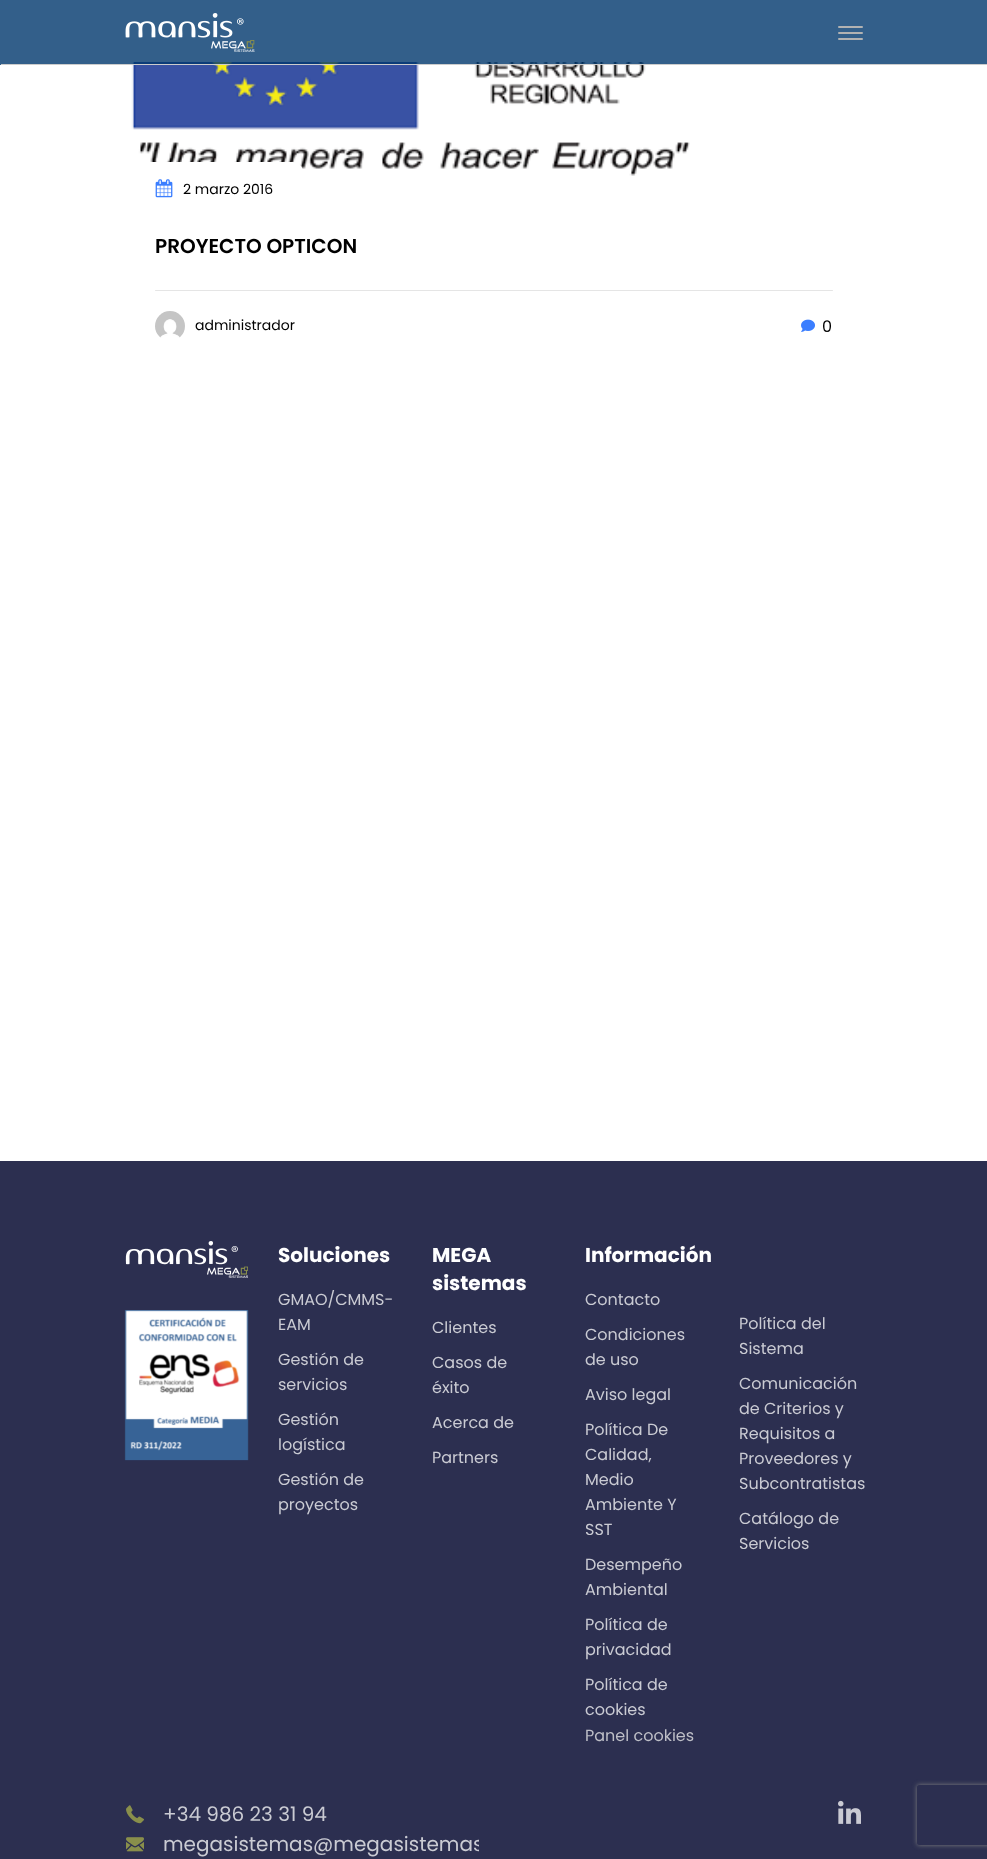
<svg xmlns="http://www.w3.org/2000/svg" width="987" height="1859">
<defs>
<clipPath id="clip1"><rect x="125" y="1829" width="354" height="30"/></clipPath>
<clipPath id="clip2"><path d="M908 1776h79v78h-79zm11 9h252c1 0 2 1 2 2v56c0 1-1 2-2 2h-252c-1 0-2-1-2-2v-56c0-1 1-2 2-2z" clip-rule="evenodd"/></clipPath>
</defs>
<rect width="100%" height="100%" fill="#fff"/>
<image x="131" y="62" width="559" height="114" href="media/2.png"/>
<rect width="987" height="65" fill="#00376dcc"/>
<image x="125" y="13" width="130" height="39" href="media/1.png"/>
<rect x="838" y="26" width="25" height="2" rx="1" fill="#b2b2b2"/>
<rect x="838" y="32" width="25" height="2" rx="1" fill="#b2b2b2"/>
<rect x="838" y="38" width="25" height="2" rx="1" fill="#b2b2b2"/>
<rect x="1" y="64" width="986" height="1" fill="#ccc"/>
<path d="M125 162h168c5.5 0 10 4.5 10 10v31h-178z" fill="#fff"/>
<image x="155" y="179" width="18" height="19" href="media/3.png"/>
<text x="183" y="194" style="font-family:Poppins;font-size:14px;fill:#000">2 marzo 2016</text>
<text x="155" y="253" style="font-family:Poppins;font-size:20px;font-weight:600;fill:#000">PROYECTO OPTICON</text>
<rect x="155" y="290" width="678" height="1" rx="0.5" fill="#e5e5e5"/>
<image x="155" y="311" width="30" height="27" href="media/4.png"/>
<text x="195" y="330" style="font-family:Poppins;font-size:14px;fill:#000">administrador</text>
<image x="801" y="319" width="14" height="13" href="media/5.png"/>
<text x="822" y="332" style="font-family:Poppins;font-size:16px;fill:#000">0</text>
<rect y="1161" width="987" height="698" fill="#2c2f50"/>
<image x="125" y="1241" width="123" height="37" href="media/6.png"/>
<image x="124" y="1310" width="125" height="151" href="media/7.png"/>
<text x="278" y="1262" style="font-family:Poppins;font-size:20px;font-weight:bold;fill:#fff">Soluciones</text>
<text x="278" y="1305" style="font-family:Poppins;font-size:16px;fill:#cacbd3">GMAO/CMMS-</text>
<text x="278" y="1330" style="font-family:Poppins;font-size:16px;fill:#cacbd3">EAM</text>
<text x="278" y="1365" style="font-family:Poppins;font-size:16px;fill:#cacbd3">Gestión de</text>
<text x="278" y="1390" style="font-family:Poppins;font-size:16px;fill:#cacbd3">servicios</text>
<text x="278" y="1425" style="font-family:Poppins;font-size:16px;fill:#cacbd3">Gestión</text>
<text x="278" y="1450" style="font-family:Poppins;font-size:16px;fill:#cacbd3">logística</text>
<text x="278" y="1485" style="font-family:Poppins;font-size:16px;fill:#cacbd3">Gestión de</text>
<text x="278" y="1510" style="font-family:Poppins;font-size:16px;fill:#cacbd3">proyectos</text>
<text x="432" y="1262" style="font-family:Poppins;font-size:20px;font-weight:bold;fill:#fff">MEGA</text>
<text x="432" y="1290" style="font-family:Poppins;font-size:20px;font-weight:bold;fill:#fff">sistemas</text>
<text x="432" y="1333" style="font-family:Poppins;font-size:16px;fill:#cacbd3">Clientes</text>
<text x="432" y="1368" style="font-family:Poppins;font-size:16px;fill:#cacbd3">Casos de</text>
<text x="432" y="1393" style="font-family:Poppins;font-size:16px;fill:#cacbd3">éxito</text>
<text x="432" y="1428" style="font-family:Poppins;font-size:16px;fill:#cacbd3">Acerca de</text>
<text x="432" y="1463" style="font-family:Poppins;font-size:16px;fill:#cacbd3">Partners</text>
<text x="585" y="1262" style="font-family:Poppins;font-size:20px;font-weight:bold;fill:#fff">Información</text>
<text x="585" y="1305" style="font-family:Poppins;font-size:16px;fill:#cacbd3">Contacto</text>
<text x="585" y="1340" style="font-family:Poppins;font-size:16px;fill:#cacbd3">Condiciones</text>
<text x="585" y="1365" style="font-family:Poppins;font-size:16px;fill:#cacbd3">de uso</text>
<text x="585" y="1400" style="font-family:Poppins;font-size:16px;fill:#cacbd3">Aviso legal</text>
<text x="585" y="1435" style="font-family:Poppins;font-size:16px;fill:#cacbd3">Política De</text>
<text x="585" y="1460" style="font-family:Poppins;font-size:16px;fill:#cacbd3">Calidad,</text>
<text x="585" y="1485" style="font-family:Poppins;font-size:16px;fill:#cacbd3">Medio</text>
<text x="585" y="1510" style="font-family:Poppins;font-size:16px;fill:#cacbd3">Ambiente Y</text>
<text x="585" y="1535" style="font-family:Poppins;font-size:16px;fill:#cacbd3">SST</text>
<text x="585" y="1570" style="font-family:Poppins;font-size:16px;fill:#cacbd3">Desempeño</text>
<text x="585" y="1595" style="font-family:Poppins;font-size:16px;fill:#cacbd3">Ambiental</text>
<text x="585" y="1630" style="font-family:Poppins;font-size:16px;fill:#cacbd3">Política de</text>
<text x="585" y="1655" style="font-family:Poppins;font-size:16px;fill:#cacbd3">privacidad</text>
<text x="585" y="1690" style="font-family:Poppins;font-size:16px;fill:#cacbd3">Política de</text>
<text x="585" y="1715" style="font-family:Poppins;font-size:16px;fill:#cacbd3">cookies</text>
<text x="585" y="1741" style="font-family:Poppins;font-size:16px;fill:#bebfc7">Panel cookies</text>
<text x="739" y="1329" style="font-family:Poppins;font-size:16px;fill:#cacbd3">Política del</text>
<text x="739" y="1354" style="font-family:Poppins;font-size:16px;fill:#cacbd3">Sistema</text>
<text x="739" y="1389" style="font-family:Poppins;font-size:16px;fill:#cacbd3">Comunicación</text>
<text x="739" y="1414" style="font-family:Poppins;font-size:16px;fill:#cacbd3">de Criterios y</text>
<text x="739" y="1439" style="font-family:Poppins;font-size:16px;fill:#cacbd3">Requisitos a</text>
<text x="739" y="1464" style="font-family:Poppins;font-size:16px;fill:#cacbd3">Proveedores y</text>
<text x="739" y="1489" style="font-family:Poppins;font-size:16px;fill:#cacbd3">Subcontratistas</text>
<text x="739" y="1524" style="font-family:Poppins;font-size:16px;fill:#cacbd3">Catálogo de</text>
<text x="739" y="1549" style="font-family:Poppins;font-size:16px;fill:#cacbd3">Servicios</text>
<image x="126" y="1805" width="18" height="19" href="media/8.png"/>
<text x="163" y="1821" style="font-family:Poppins;font-size:20px;fill:#cacbd3">+34 986 23 31 94</text>
<image x="126" y="1837" width="18" height="15" href="media/9.png"/>
<g clip-path="url(#clip1)">
<text x="163" y="1851" style="font-family:Poppins;font-size:20px;fill:#cacbd3">megasistemas@megasistemas</text>
</g>
<image x="838" y="1800" width="23" height="24" href="media/10.png"/>
<g clip-path="url(#clip2)">
<rect x="917" y="1785" width="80" height="60" rx="2" fill="#808080" filter="blur(2.5px)"/>
</g>
</svg>
